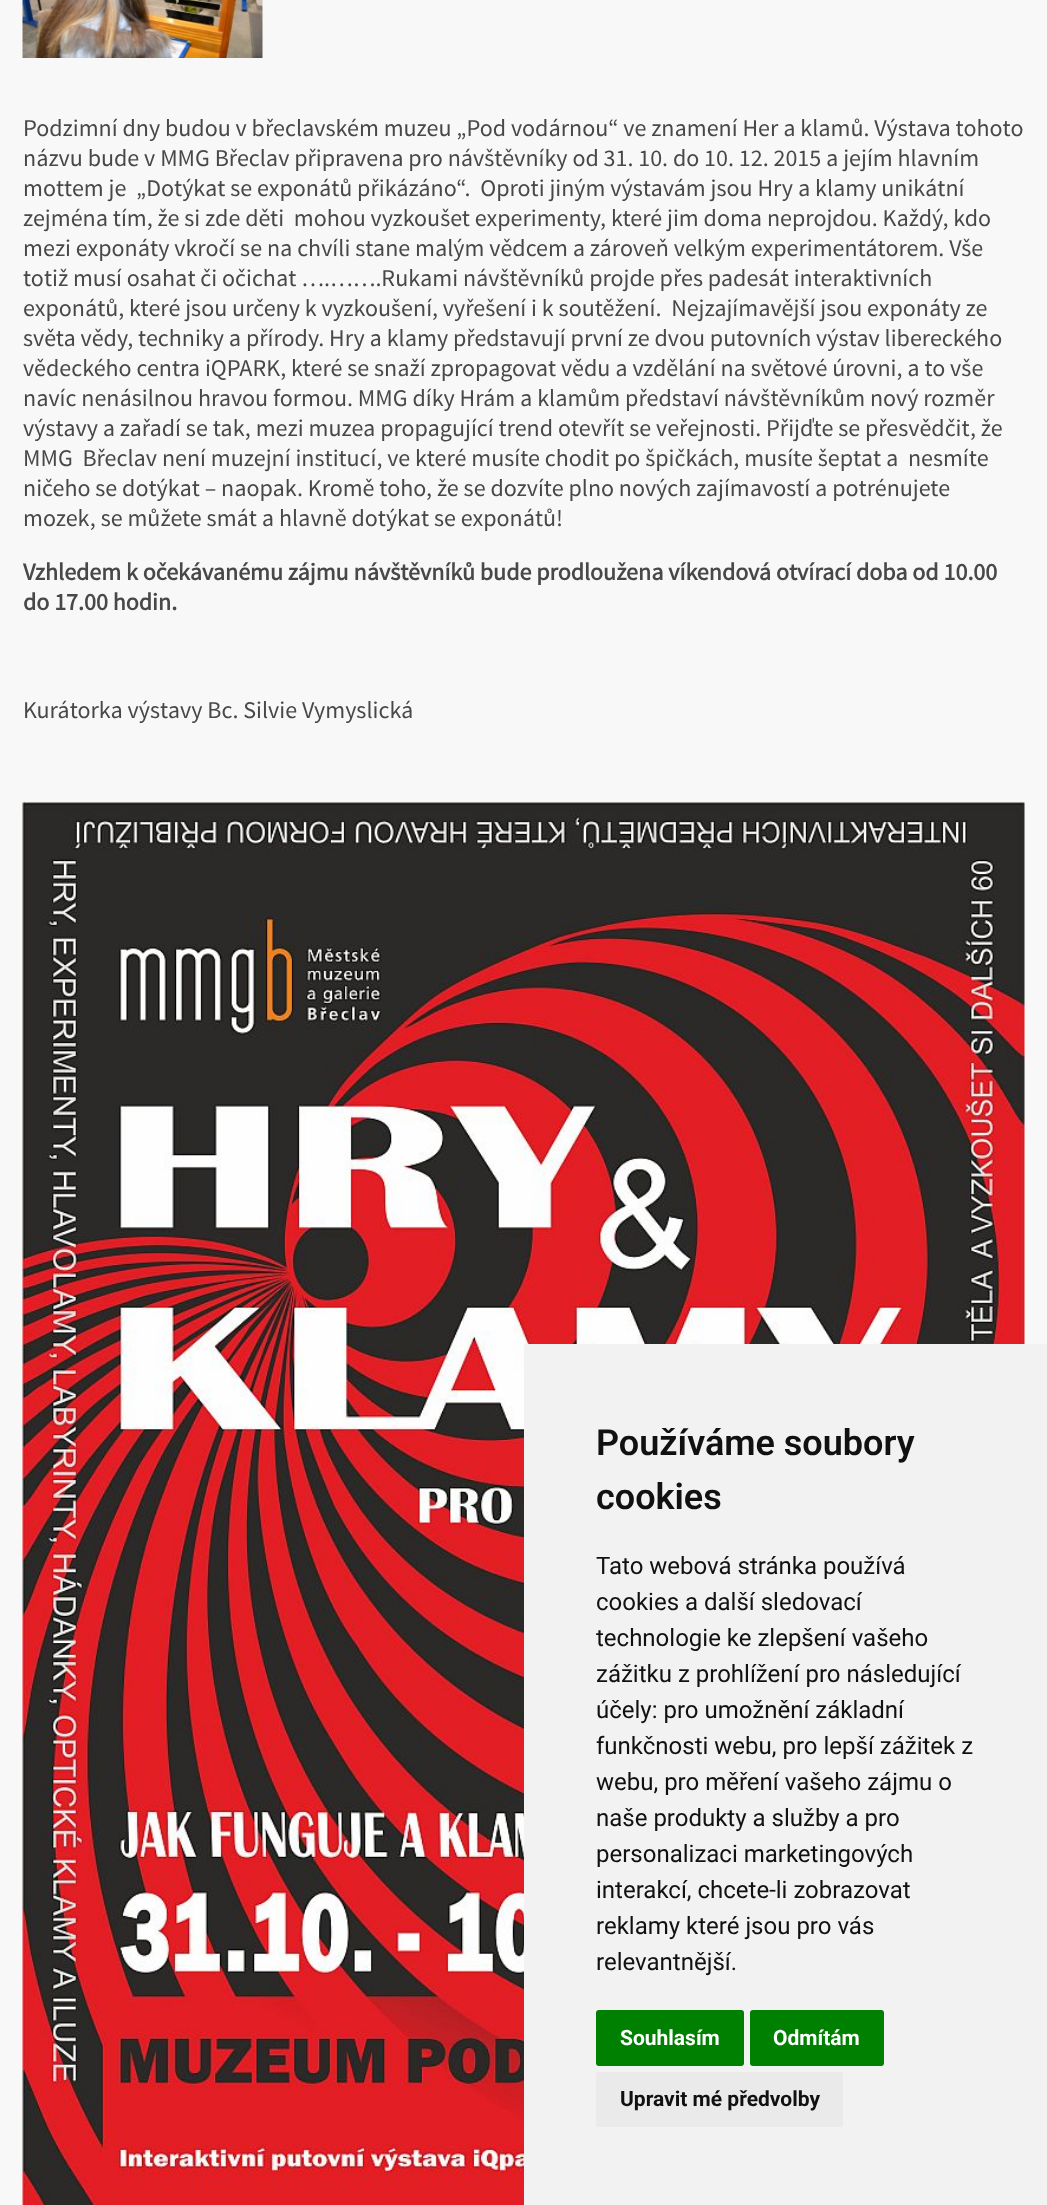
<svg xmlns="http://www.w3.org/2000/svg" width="1047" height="2205">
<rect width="100%" height="100%" fill="#f8f8f8"/>
<image x="22" y="0" width="241" height="58" href="media/1.png"/>
<text x="23" y="136" style="font-family:Source Sans Pro;font-size:24px;fill:#484848">Podzimní dny budou v břeclavském muzeu „Pod vodárnou“ ve znamení Her a klamů. Výstava tohoto</text>
<text x="23" y="166" style="font-family:Source Sans Pro;font-size:24px;fill:#484848">názvu bude v MMG Břeclav připravena pro návštěvníky od 31. 10. do 10. 12. 2015 a jejím hlavním</text>
<text x="23" y="196" style="font-family:Source Sans Pro;font-size:24px;fill:#484848" xml:space="preserve">mottem je  „Dotýkat se exponátů přikázáno“.  Oproti jiným výstavám jsou Hry a klamy unikátní</text>
<text x="23" y="226" style="font-family:Source Sans Pro;font-size:24px;fill:#484848" xml:space="preserve">zejména tím, že si zde děti  mohou vyzkoušet experimenty, které jim doma neprojdou. Každý, kdo</text>
<text x="23" y="256" style="font-family:Source Sans Pro;font-size:24px;fill:#484848">mezi exponáty vkročí se na chvíli stane malým vědcem a zároveň velkým experimentátorem. Vše</text>
<text x="23" y="286" style="font-family:Source Sans Pro;font-size:24px;fill:#484848">totiž musí osahat či očichat ….…….Rukami návštěvníků projde přes padesát interaktivních</text>
<text x="23" y="316" style="font-family:Source Sans Pro;font-size:24px;fill:#484848" xml:space="preserve">exponátů, které jsou určeny k vyzkoušení, vyřešení i k soutěžení.  Nejzajímavější jsou exponáty ze</text>
<text x="23" y="346" style="font-family:Source Sans Pro;font-size:24px;fill:#484848">světa vědy, techniky a přírody. Hry a klamy představují první ze dvou putovních výstav libereckého</text>
<text x="23" y="376" style="font-family:Source Sans Pro;font-size:24px;fill:#484848">vědeckého centra iQPARK, které se snaží zpropagovat vědu a vzdělání na světové úrovni, a to vše</text>
<text x="23" y="406" style="font-family:Source Sans Pro;font-size:24px;fill:#484848">navíc nenásilnou hravou formou. MMG díky Hrám a klamům představí návštěvníkům nový rozměr</text>
<text x="23" y="436" style="font-family:Source Sans Pro;font-size:24px;fill:#484848">výstavy a zařadí se tak, mezi muzea propagující trend otevřít se veřejnosti. Přijďte se přesvědčit, že</text>
<text x="23" y="466" style="font-family:Source Sans Pro;font-size:24px;fill:#484848" xml:space="preserve">MMG  Břeclav není muzejní institucí, ve které musíte chodit po špičkách, musíte šeptat a  nesmíte</text>
<text x="23" y="496" style="font-family:Source Sans Pro;font-size:24px;fill:#484848">ničeho se dotýkat – naopak. Kromě toho, že se dozvíte plno nových zajímavostí a potrénujete</text>
<text x="23" y="526" style="font-family:Source Sans Pro;font-size:24px;fill:#484848">mozek, se můžete smát a hlavně dotýkat se exponátů!</text>
<text x="23" y="580" style="font-family:Source Sans Pro;font-size:24px;font-weight:bold;fill:#484848">Vzhledem k očekávanému zájmu návštěvníků bude prodloužena víkendová otvírací doba od 10.00</text>
<text x="23" y="610" style="font-family:Source Sans Pro;font-size:24px;font-weight:bold;fill:#484848">do 17.00 hodin.</text>
<text x="23" y="718" style="font-family:Source Sans Pro;font-size:24px;fill:#484848">Kurátorka výstavy Bc. Silvie Vymyslická</text>
<image x="22" y="802" width="1003" height="1403" href="media/2.png"/>
<rect x="524" y="1344" width="523" height="861" fill="#f2f2f2"/>
<text x="596" y="1455" style="font-family:Roboto;font-size:36px;font-weight:600;fill:#111">Používáme soubory</text>
<text x="596" y="1509" style="font-family:Roboto;font-size:36px;font-weight:600;fill:#111">cookies</text>
<text x="596" y="1574" style="font-family:Roboto;font-size:24px;fill:#111">Tato webová stránka používá</text>
<text x="596" y="1610" style="font-family:Roboto;font-size:24px;fill:#111">cookies a další sledovací</text>
<text x="596" y="1646" style="font-family:Roboto;font-size:24px;fill:#111">technologie ke zlepšení vašeho</text>
<text x="596" y="1682" style="font-family:Roboto;font-size:24px;fill:#111">zážitku z prohlížení pro následující</text>
<text x="596" y="1718" style="font-family:Roboto;font-size:24px;fill:#111">účely: pro umožnění základní</text>
<text x="596" y="1754" style="font-family:Roboto;font-size:24px;fill:#111">funkčnosti webu, pro lepší zážitek z</text>
<text x="596" y="1790" style="font-family:Roboto;font-size:24px;fill:#111">webu, pro měření vašeho zájmu o</text>
<text x="596" y="1826" style="font-family:Roboto;font-size:24px;fill:#111">naše produkty a služby a pro</text>
<text x="596" y="1862" style="font-family:Roboto;font-size:24px;fill:#111">personalizaci marketingových</text>
<text x="596" y="1898" style="font-family:Roboto;font-size:24px;fill:#111">interakcí, chcete-li zobrazovat</text>
<text x="596" y="1934" style="font-family:Roboto;font-size:24px;fill:#111">reklamy které jsou pro vás</text>
<text x="596" y="1970" style="font-family:Roboto;font-size:24px;fill:#111">relevantnější.</text>
<rect x="596" y="2010" width="148" height="56" rx="3" fill="#008000"/>
<text x="620" y="2045" style="font-family:Roboto;font-size:21px;font-weight:bold;fill:#fff">Souhlasím</text>
<rect x="750" y="2010" width="134" height="56" rx="3" fill="#008000"/>
<text x="773" y="2045" style="font-family:Roboto;font-size:21px;font-weight:bold;fill:#fff">Odmítám</text>
<rect x="596" y="2072" width="247" height="55" rx="3" fill="#eaeaea"/>
<text x="620" y="2106" style="font-family:Roboto;font-size:21px;font-weight:bold;fill:#111">Upravit mé předvolby</text>
</svg>
